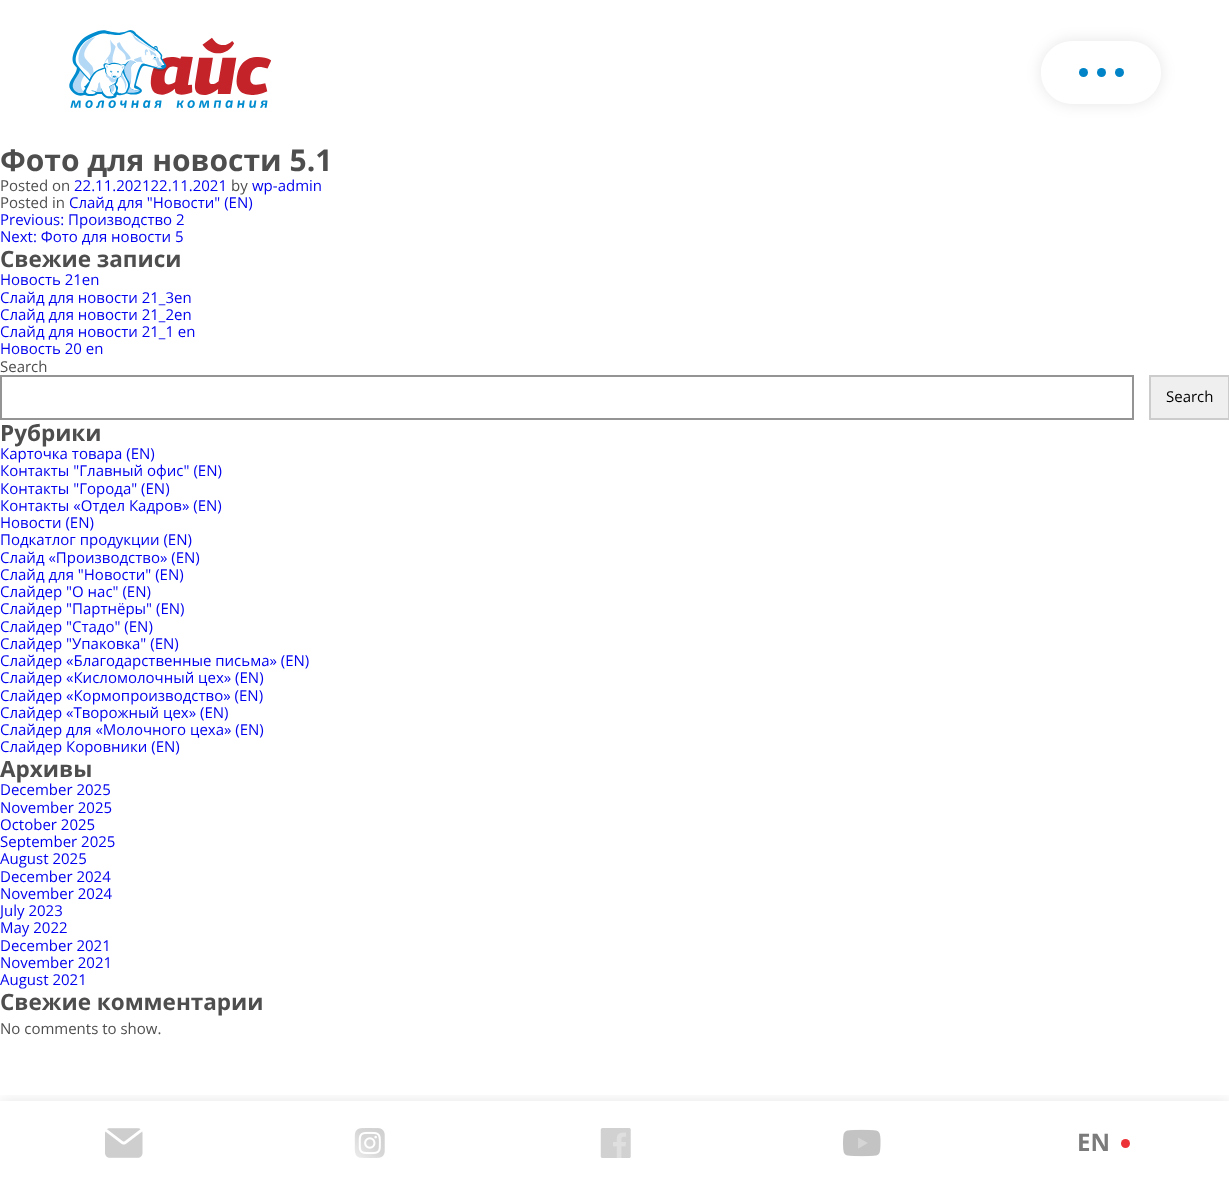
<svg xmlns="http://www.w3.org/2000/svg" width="1229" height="1183">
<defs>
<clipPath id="clip1"><path d="M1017 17h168v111h-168zm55.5 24h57c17.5 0 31.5 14 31.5 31.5c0 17.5-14 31.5-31.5 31.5h-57c-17.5 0-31.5-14-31.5-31.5c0-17.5 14-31.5 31.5-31.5z" clip-rule="evenodd"/></clipPath>
<clipPath id="clip2"><rect x="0" y="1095" width="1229" height="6"/></clipPath>
</defs>
<rect width="100%" height="100%" fill="#fff"/>
<image x="69" y="30" width="203" height="78" href="media/1.png"/>
<g clip-path="url(#clip1)">
<rect x="1041" y="41" width="120" height="63" rx="31.5" fill="#0000001a" filter="blur(7.5px)"/>
</g>
<circle cx="1083.5" cy="72.5" r="4.5" fill="#0084c7"/>
<circle cx="1101.5" cy="72.5" r="4.5" fill="#0084c7"/>
<circle cx="1119.5" cy="72.5" r="4.5" fill="#0084c7"/>
<text x="0" y="171" style="font-family:Open Sans;font-size:30px;font-weight:bold;fill:#4e4e4e">Фото для новости 5.1</text>
<text x="0" y="191" style="font-family:Open Sans;font-size:15px;fill:#4e4e4e">Posted on</text>
<text x="74" y="191" style="font-family:Open Sans;font-size:15px;fill:#00e">22.11.202122.11.2021</text>
<text x="231" y="191" style="font-family:Open Sans;font-size:15px;fill:#4e4e4e">by</text>
<text x="252" y="191" style="font-family:Open Sans;font-size:15px;fill:#00e">wp-admin</text>
<text x="0" y="208" style="font-family:Open Sans;font-size:15px;fill:#4e4e4e">Posted in</text>
<text x="69" y="208" style="font-family:Open Sans;font-size:15px;fill:#00e">Слайд для "Новости" (EN)</text>
<text x="0" y="225" style="font-family:Open Sans;font-size:15px;fill:#00e">Previous: Производство 2</text>
<text x="0" y="242" style="font-family:Open Sans;font-size:15px;fill:#00e">Next: Фото для новости 5</text>
<text x="0" y="267" style="font-family:Open Sans;font-size:22.5px;font-weight:bold;fill:#4e4e4e">Свежие записи</text>
<text x="0" y="285" style="font-family:Open Sans;font-size:15px;fill:#00e">Новость 21en</text>
<text x="0" y="303" style="font-family:Open Sans;font-size:15px;fill:#00e">Слайд для новости 21_3en</text>
<text x="0" y="320" style="font-family:Open Sans;font-size:15px;fill:#00e">Слайд для новости 21_2en</text>
<text x="0" y="337" style="font-family:Open Sans;font-size:15px;fill:#00e">Слайд для новости 21_1 en</text>
<text x="0" y="354" style="font-family:Open Sans;font-size:15px;fill:#00e">Новость 20 en</text>
<text x="0" y="372" style="font-family:Open Sans;font-size:15px;fill:#4e4e4e">Search</text>
<rect x="1" y="376" width="1132" height="43" fill="none" stroke="#949494" stroke-width="2"/>
<rect x="1150" y="376" width="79" height="43" fill="#efefef" stroke="#ccc" stroke-width="2"/>
<text x="1166" y="402" style="font-family:Open Sans;font-size:15px;fill:#000">Search</text>
<text x="0" y="441" style="font-family:Open Sans;font-size:22.5px;font-weight:bold;fill:#4e4e4e">Рубрики</text>
<text x="0" y="459" style="font-family:Open Sans;font-size:15px;fill:#00e">Карточка товара (EN)</text>
<text x="0" y="476" style="font-family:Open Sans;font-size:15px;fill:#00e">Контакты "Главный офис" (EN)</text>
<text x="0" y="494" style="font-family:Open Sans;font-size:15px;fill:#00e">Контакты "Города" (EN)</text>
<text x="0" y="511" style="font-family:Open Sans;font-size:15px;fill:#00e">Контакты «Отдел Кадров» (EN)</text>
<text x="0" y="528" style="font-family:Open Sans;font-size:15px;fill:#00e">Новости (EN)</text>
<text x="0" y="545" style="font-family:Open Sans;font-size:15px;fill:#00e">Подкатлог продукции (EN)</text>
<text x="0" y="563" style="font-family:Open Sans;font-size:15px;fill:#00e">Слайд «Производство» (EN)</text>
<text x="0" y="580" style="font-family:Open Sans;font-size:15px;fill:#00e">Слайд для "Новости" (EN)</text>
<text x="0" y="597" style="font-family:Open Sans;font-size:15px;fill:#00e">Слайдер "О нас" (EN)</text>
<text x="0" y="614" style="font-family:Open Sans;font-size:15px;fill:#00e">Слайдер "Партнёры" (EN)</text>
<text x="0" y="632" style="font-family:Open Sans;font-size:15px;fill:#00e">Слайдер "Стадо" (EN)</text>
<text x="0" y="649" style="font-family:Open Sans;font-size:15px;fill:#00e">Слайдер "Упаковка" (EN)</text>
<text x="0" y="666" style="font-family:Open Sans;font-size:15px;fill:#00e">Слайдер «Благодарственные письма» (EN)</text>
<text x="0" y="683" style="font-family:Open Sans;font-size:15px;fill:#00e">Слайдер «Кисломолочный цех» (EN)</text>
<text x="0" y="701" style="font-family:Open Sans;font-size:15px;fill:#00e">Слайдер «Кормопроизводство» (EN)</text>
<text x="0" y="718" style="font-family:Open Sans;font-size:15px;fill:#00e">Слайдер «Творожный цех» (EN)</text>
<text x="0" y="735" style="font-family:Open Sans;font-size:15px;fill:#00e">Слайдер для «Молочного цеха» (EN)</text>
<text x="0" y="752" style="font-family:Open Sans;font-size:15px;fill:#00e">Слайдер Коровники (EN)</text>
<text x="0" y="777" style="font-family:Open Sans;font-size:22.5px;font-weight:bold;fill:#4e4e4e">Архивы</text>
<text x="0" y="795" style="font-family:Open Sans;font-size:15px;fill:#00e">December 2025</text>
<text x="0" y="813" style="font-family:Open Sans;font-size:15px;fill:#00e">November 2025</text>
<text x="0" y="830" style="font-family:Open Sans;font-size:15px;fill:#00e">October 2025</text>
<text x="0" y="847" style="font-family:Open Sans;font-size:15px;fill:#00e">September 2025</text>
<text x="0" y="864" style="font-family:Open Sans;font-size:15px;fill:#00e">August 2025</text>
<text x="0" y="882" style="font-family:Open Sans;font-size:15px;fill:#00e">December 2024</text>
<text x="0" y="899" style="font-family:Open Sans;font-size:15px;fill:#00e">November 2024</text>
<text x="0" y="916" style="font-family:Open Sans;font-size:15px;fill:#00e">July 2023</text>
<text x="0" y="933" style="font-family:Open Sans;font-size:15px;fill:#00e">May 2022</text>
<text x="0" y="951" style="font-family:Open Sans;font-size:15px;fill:#00e">December 2021</text>
<text x="0" y="968" style="font-family:Open Sans;font-size:15px;fill:#00e">November 2021</text>
<text x="0" y="985" style="font-family:Open Sans;font-size:15px;fill:#00e">August 2021</text>
<text x="0" y="1010" style="font-family:Open Sans;font-size:22.5px;font-weight:bold;fill:#4e4e4e">Свежие комментарии</text>
<text x="0" y="1034" style="font-family:Open Sans;font-size:15px;fill:#4e4e4e">No comments to show.</text>
<g clip-path="url(#clip2)">
<rect y="1101" width="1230" height="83" fill="#0000001a" filter="blur(7.5px)"/>
</g>
<image x="105" y="1128" width="38" height="30" href="media/2.png"/>
<image x="354" y="1128" width="31" height="30" href="media/3.png"/>
<image x="600" y="1128" width="31" height="30" href="media/4.png"/>
<image x="843" y="1129" width="38" height="28" href="media/5.png"/>
<text x="1077" y="1151" style="font-family:Open Sans;font-size:24px;font-weight:bold;fill:#7b7b7b">EN</text>
<circle cx="1125.5" cy="1143.5" r="4.5" fill="#ed3237"/>
</svg>
